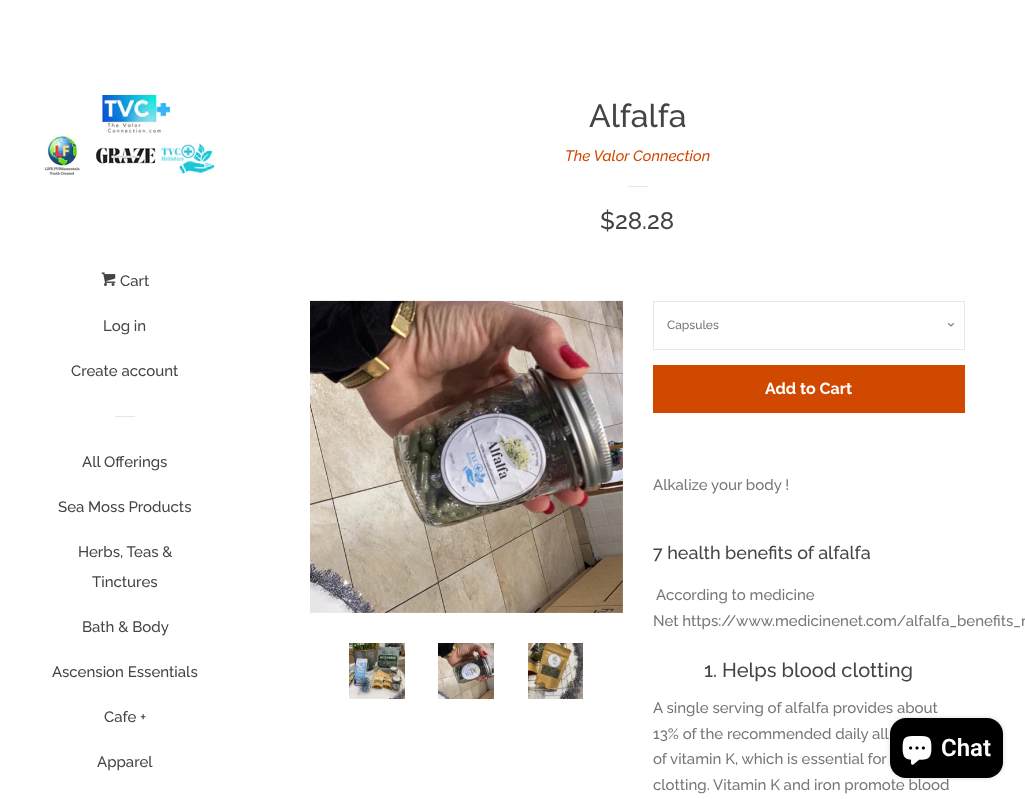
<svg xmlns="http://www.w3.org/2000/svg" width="1025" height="799">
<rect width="100%" height="100%" fill="#fff"/>
<image x="44" y="95" width="174" height="80" href="media/1.png"/>
<image x="101" y="272" width="15" height="14" href="media/2.png"/>
<text x="120" y="286" style="font-family:Raleway;font-size:15px;font-weight:500;fill:#444">Cart</text>
<text x="103" y="331" style="font-family:Raleway;font-size:15px;font-weight:500;fill:#444">Log in</text>
<text x="71" y="376" style="font-family:Raleway;font-size:15px;font-weight:500;fill:#444">Create account</text>
<rect x="115" y="416" width="20" height="1" fill="#e6e6e6"/>
<text x="82" y="467" style="font-family:Raleway;font-size:15px;font-weight:500;fill:#444">All Offerings</text>
<text x="58" y="512" style="font-family:Raleway;font-size:15px;font-weight:500;fill:#444">Sea Moss Products</text>
<text x="78" y="557" style="font-family:Raleway;font-size:15px;font-weight:500;fill:#444">Herbs, Teas &amp;</text>
<text x="92" y="587" style="font-family:Raleway;font-size:15px;font-weight:500;fill:#444">Tinctures</text>
<text x="82" y="632" style="font-family:Raleway;font-size:15px;font-weight:500;fill:#444">Bath &amp; Body</text>
<text x="52" y="677" style="font-family:Raleway;font-size:15px;font-weight:500;fill:#444">Ascension Essentials</text>
<text x="104" y="722" style="font-family:Raleway;font-size:15px;font-weight:500;fill:#444">Cafe +</text>
<text x="97" y="767" style="font-family:Raleway;font-size:15px;font-weight:500;fill:#444">Apparel</text>
<text x="589" y="127" style="font-family:Raleway;font-size:32px;font-weight:500;fill:#444">Alfalfa</text>
<text x="565" y="161" style="font-family:Raleway;font-size:15px;font-weight:500;font-style:italic;fill:#d14800">The Valor Connection</text>
<rect x="628" y="186" width="20" height="1" fill="#e7e7e7"/>
<text x="600" y="229" style="font-family:Raleway;font-size:24px;font-weight:500;fill:#444">$28.28</text>
<image x="310" y="300" width="313" height="313" href="media/3.png"/>
<image x="349" y="643" width="56" height="56" href="media/4.png"/>
<image x="438" y="643" width="56" height="56" href="media/5.png"/>
<image x="528" y="643" width="55" height="56" href="media/6.png"/>
<image x="948" y="323" width="6" height="4" href="media/7.png"/>
<rect x="653.5" y="301.5" width="311" height="48" fill="none" stroke="#e7e7e7"/>
<text x="667" y="329" style="font-family:Raleway;font-size:12px;font-weight:500;fill:#777">Capsules</text>
<rect x="653" y="365" width="312" height="48" fill="#d14800"/>
<text x="765" y="394" style="font-family:Raleway;font-size:16px;font-weight:bold;fill:#fff">Add to Cart</text>
<text x="653" y="490" style="font-family:Raleway;font-size:15px;font-weight:500;fill:#777">Alkalize your body !</text>
<text x="653" y="559" style="font-family:Raleway;font-size:18px;font-weight:500;fill:#444">7 health benefits of alfalfa</text>
<text x="656" y="600" style="font-family:Raleway;font-size:15px;font-weight:500;fill:#777">According to medicine</text>
<text x="653" y="626" style="font-family:Raleway;font-size:15px;font-weight:500;fill:#777">Net https://www.medicinenet.com/alfalfa_benefits_n</text>
<text x="704" y="677" style="font-family:Raleway;font-size:20px;font-weight:500;fill:#444">1. Helps blood clotting</text>
<text x="653" y="713" style="font-family:Raleway;font-size:15px;font-weight:500;fill:#777">A single serving of alfalfa provides about</text>
<text x="653" y="739" style="font-family:Raleway;font-size:15px;font-weight:500;fill:#777">13% of the recommended daily all</text>
<text x="653" y="764" style="font-family:Raleway;font-size:15px;font-weight:500;fill:#777">of vitamin K, which is essential for</text>
<text x="653" y="790" style="font-family:Raleway;font-size:15px;font-weight:500;fill:#777">clotting. Vitamin K and iron promote blood</text>
<rect x="890" y="718" width="113" height="60" rx="16" fill="#00000026" filter="blur(2.5px)"/>
<rect x="890" y="718" width="113" height="60" rx="16" fill="#000"/>
<image x="902" y="736" width="30" height="29" href="media/8.png"/>
<text x="941" y="756" style="font-family:Roboto;font-size:24px;font-weight:600;fill:#fff">Chat</text>
</svg>
